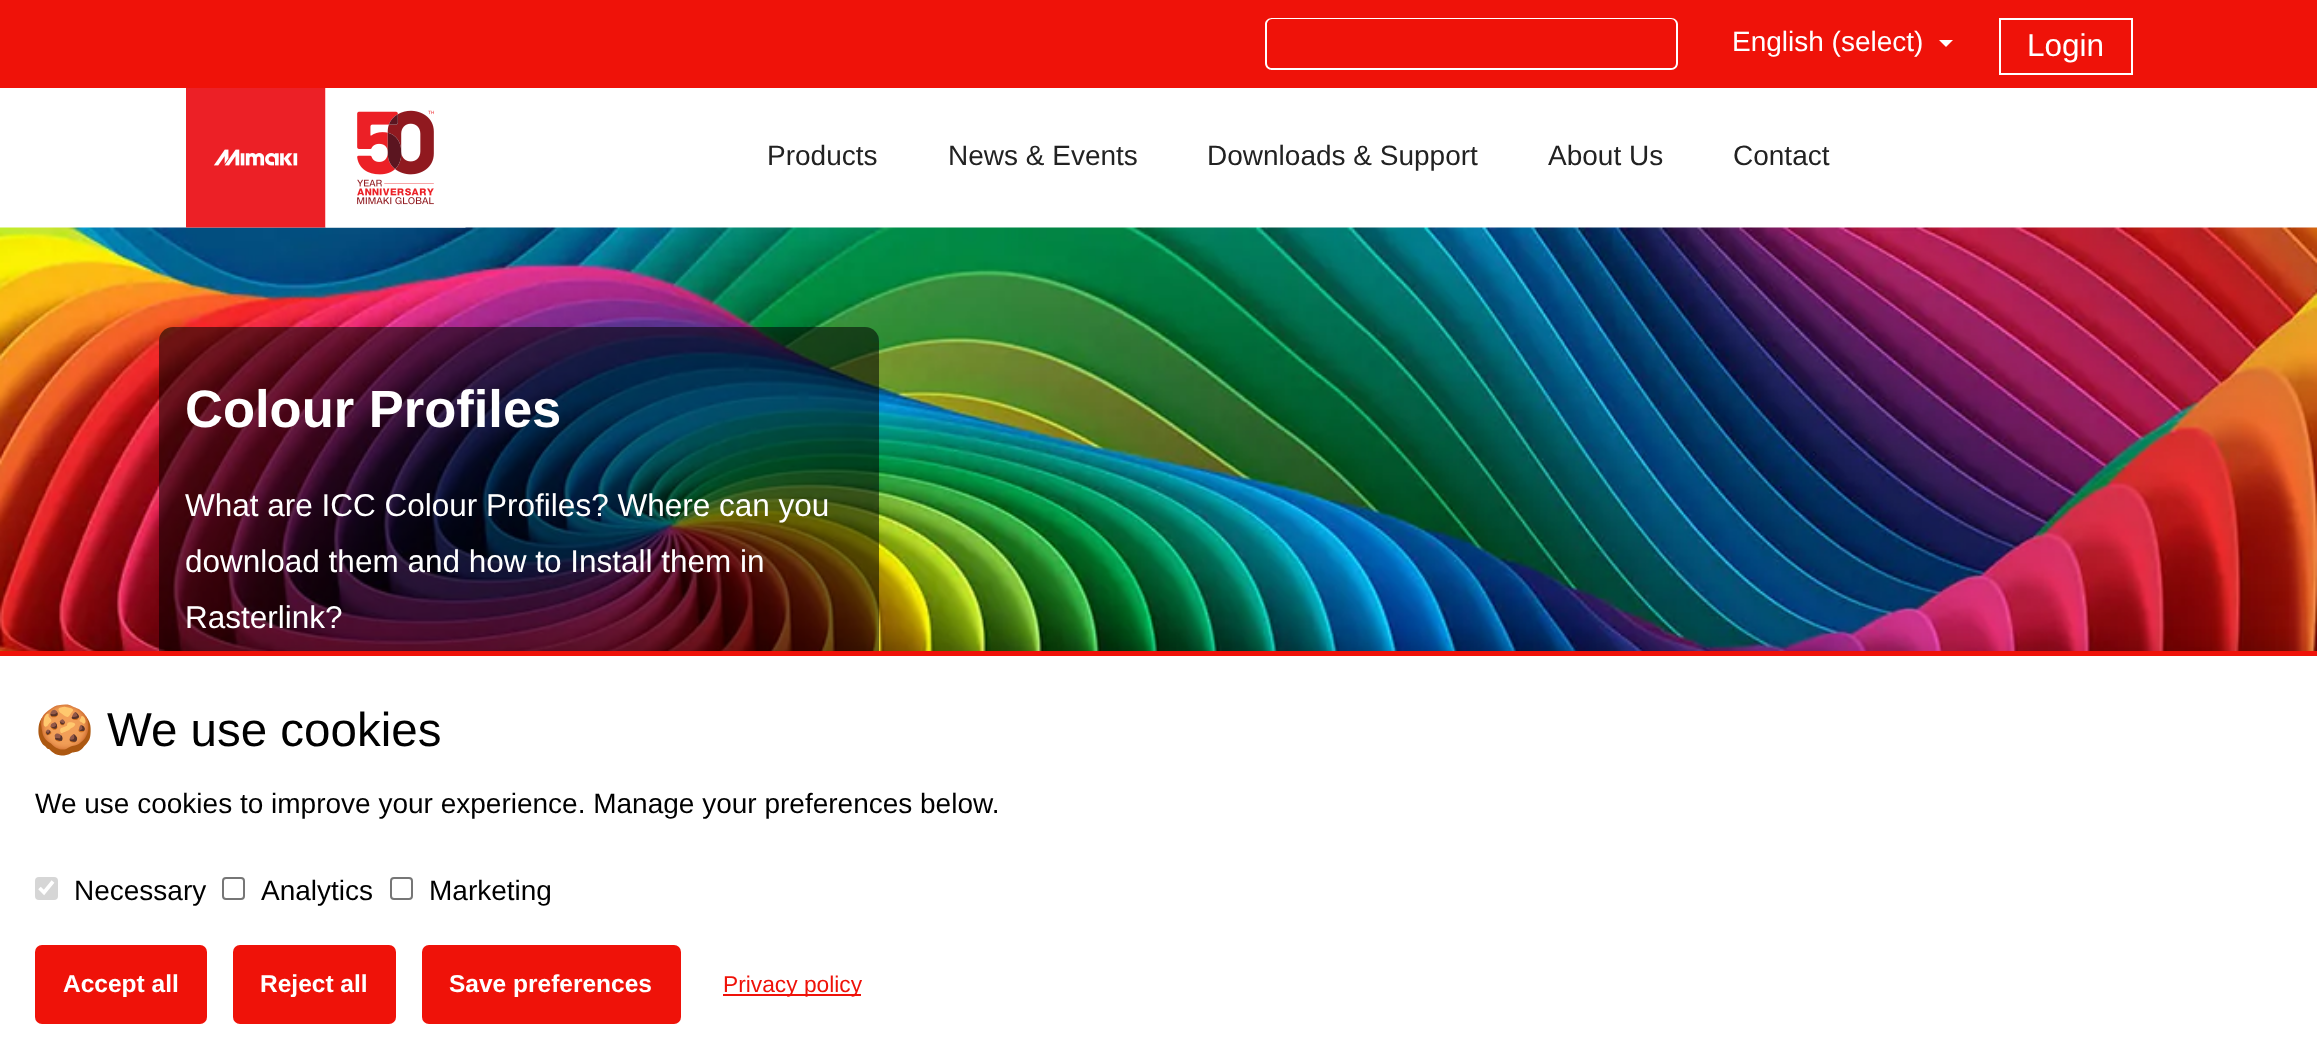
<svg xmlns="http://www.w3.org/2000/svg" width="2317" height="1058">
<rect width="100%" height="100%" fill="#fff"/>
<rect width="2317" height="88" fill="#ef1209"/>
<path d="M1272 18h362v52h-362c-4 0-7-3-7-7v-39c0-3 3-6 7-6zm0 1h362v49h-362c-3 0-5-2-5-5v-39c0-2 2-5 5-5z" fill="#fff" fill-rule="evenodd"/>
<path d="M1634 18h37c4 0 7 3 7 6v39c0 4-3 7-7 7h-37zm0 1h37c3 0 5 3 5 5v39c0 3-2 5-5 5h-37z" fill="#fff" fill-rule="evenodd"/>
<text x="1732" y="51" style="font-family:Liberation Sans;font-size:28px;fill:#fff">English (select)</text>
<path d="M1939 40h14l-7 7z" fill="#fff"/>
<rect x="2000" y="19" width="132" height="55" fill="none" stroke="#fff" stroke-width="2"/>
<text x="2027" y="56" style="font-family:Liberation Sans;font-size:31.5px;fill:#fff">Login</text>
<image x="0" y="227" width="2317" height="424" href="media/2.png"/>
<image x="186" y="88" width="280" height="140" href="media/1.png"/>
<text x="767" y="165" style="font-family:Liberation Sans;font-size:28px;fill:#222">Products</text>
<text x="948" y="165" style="font-family:Liberation Sans;font-size:28px;fill:#222">News &amp; Events</text>
<text x="1207" y="165" style="font-family:Liberation Sans;font-size:28px;fill:#222">Downloads &amp; Support</text>
<text x="1548" y="165" style="font-family:Liberation Sans;font-size:28px;fill:#222">About Us</text>
<text x="1733" y="165" style="font-family:Liberation Sans;font-size:28px;fill:#222">Contact</text>
<rect x="159" y="327" width="720" height="359" rx="14" fill="#0000008c"/>
<text x="185" y="427" style="font-family:Liberation Sans;font-size:52.5px;font-weight:bold;fill:#fff">Colour Profiles</text>
<text x="185" y="516" style="font-family:Liberation Sans;font-size:31.5px;fill:#fff">What are ICC Colour Profiles? Where can you</text>
<text x="185" y="572" style="font-family:Liberation Sans;font-size:31.5px;fill:#fff">download them and how to Install them in</text>
<text x="185" y="628" style="font-family:Liberation Sans;font-size:31.5px;fill:#fff">Rasterlink?</text>
<rect y="646" width="2317" height="408" fill="#0000001a" filter="blur(9px)"/>
<rect y="656" width="2317" height="402" fill="#fff"/>
<rect y="651" width="2317" height="5" fill="#ef1209"/>
<text x="35" y="746" style="font-family:Noto Color Emoji;font-size:47.5px;fill:#000">🍪</text>
<text x="107" y="746" style="font-family:Liberation Sans;font-size:47.5px;fill:#000">We use cookies</text>
<text x="35" y="813" style="font-family:Liberation Sans;font-size:28px;fill:#000">We use cookies to improve your experience. Manage your preferences below.</text>
<rect x="35" y="877" width="23" height="23" rx="4" fill="#d6d6d6"/>
<path d="M39.5 888l4.5 4.5l9-11" fill="none" stroke="#fff" stroke-width="3.6"/>
<text x="74" y="900" style="font-family:Liberation Sans;font-size:28px;fill:#000">Necessary</text>
<rect x="223" y="878" width="21" height="21" rx="3" fill="none" stroke="#767676" stroke-width="2"/>
<text x="261" y="900" style="font-family:Liberation Sans;font-size:28px;fill:#000">Analytics</text>
<rect x="391" y="878" width="21" height="21" rx="3" fill="none" stroke="#767676" stroke-width="2"/>
<text x="429" y="900" style="font-family:Liberation Sans;font-size:28px;fill:#000">Marketing</text>
<rect x="35" y="945" width="172" height="79" rx="7" fill="#ef1209"/>
<text x="63" y="992" style="font-family:Liberation Sans;font-size:24.5px;font-weight:bold;fill:#fff">Accept all</text>
<rect x="233" y="945" width="163" height="79" rx="7" fill="#ef1209"/>
<text x="260" y="992" style="font-family:Liberation Sans;font-size:24.5px;font-weight:bold;fill:#fff">Reject all</text>
<rect x="422" y="945" width="259" height="79" rx="7" fill="#ef1209"/>
<text x="449" y="992" style="font-family:Liberation Sans;font-size:24.5px;font-weight:bold;fill:#fff">Save preferences</text>
<rect x="723" y="994" width="138" height="2" fill="#ef1209"/>
<text x="723" y="992" style="font-family:Liberation Sans;font-size:22.75px;fill:#ef1209">Privacy policy</text>
</svg>
